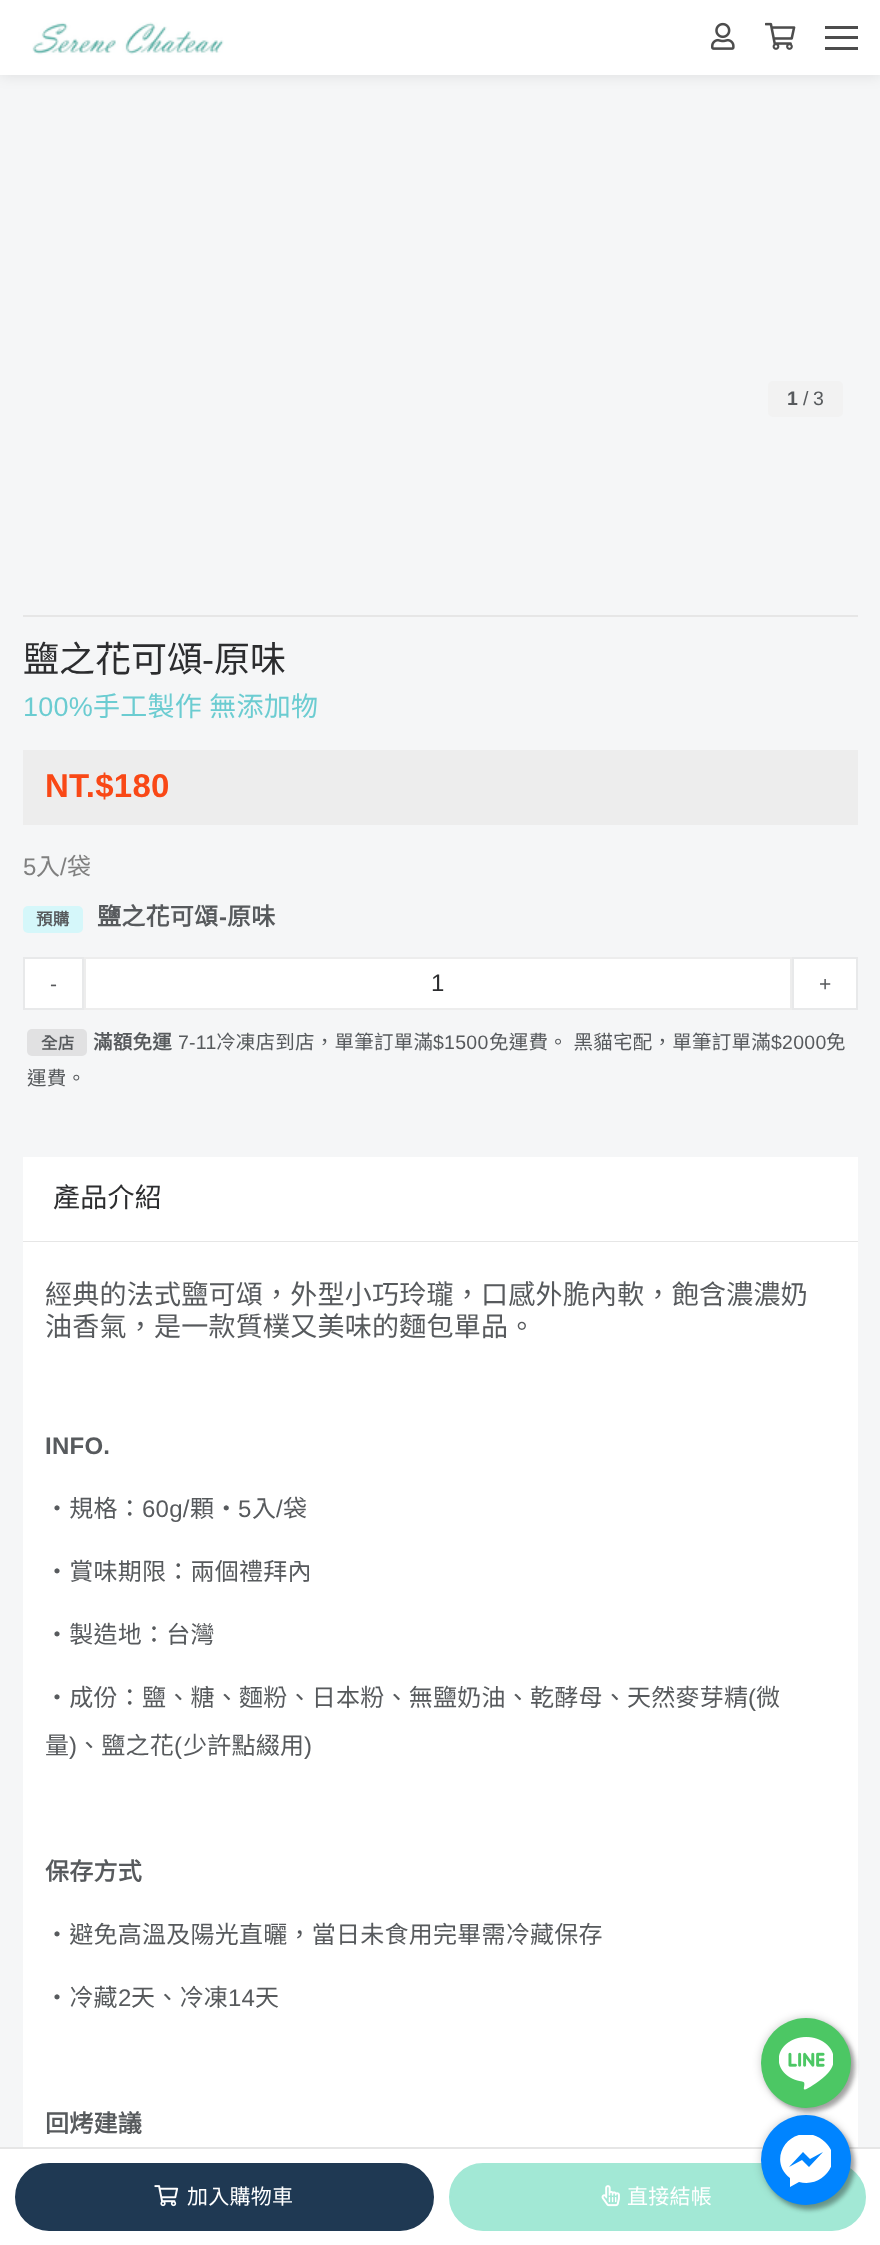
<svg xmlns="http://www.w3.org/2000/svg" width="880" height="2245">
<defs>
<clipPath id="clip1"><rect x="780" y="2135" width="51" height="52"/></clipPath>
</defs>
<rect width="100%" height="100%" fill="#f5f6f7"/>
<rect width="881" height="75" fill="#0000001a" filter="blur(7.5px)"/>
<rect width="880" height="75" fill="#fff"/>
<image x="32" y="22" width="192" height="33" href="media/1.png"/>
<image x="711" y="22" width="24" height="28" href="media/2.png"/>
<image x="765" y="22" width="31" height="28" href="media/3.png"/>
<rect x="825" y="26" width="33" height="3" fill="#4d4d4d"/>
<rect x="825" y="36" width="33" height="3" fill="#4d4d4d"/>
<rect x="825" y="47" width="33" height="3" fill="#4d4d4d"/>
<rect x="23" y="615" width="835" height="2" fill="#e6e6e6"/>
<rect x="768" y="381" width="75" height="36" rx="5" fill="#f2f2f2"/>
<text x="787" y="405" style="font-family:Liberation Sans;font-size:19.5px;font-weight:bold;letter-spacing:0.25px;fill:#575a5d">1</text>
<text x="803" y="405" style="font-family:Liberation Sans;font-size:19.5px;letter-spacing:0.25px;fill:#575a5d">/</text>
<text x="813" y="405" style="font-family:Liberation Sans;font-size:19.5px;letter-spacing:0.25px;fill:#575a5d">3</text>
<text x="23" y="672" style="font-family:Noto Sans CJK TC;font-size:36px;fill:#2c2d2f">鹽之花可頌</text>
<text x="202" y="672" style="font-family:Liberation Sans;font-size:36px;fill:#2c2d2f">-</text>
<text x="214" y="672" style="font-family:Noto Sans CJK TC;font-size:36px;fill:#2c2d2f">原味</text>
<text x="23" y="716" style="font-family:Liberation Sans;font-size:27px;letter-spacing:0.25px;fill:#6bccd1">100%</text>
<text x="93" y="716" word-spacing="1" style="font-family:Noto Sans CJK TC;font-size:27px;letter-spacing:0.25px;fill:#6bccd1">手工製作 無添加物</text>
<rect x="23" y="750" width="835" height="75" fill="#ededed"/>
<text x="45" y="797" style="font-family:Liberation Sans;font-size:33px;font-weight:bold;letter-spacing:0.25px;fill:#f94816">NT.$180</text>
<text x="23" y="875" style="font-family:Liberation Sans;font-size:24px;letter-spacing:0.25px;fill:#808080">5</text>
<text x="36" y="875" style="font-family:Noto Sans CJK TC;font-size:24px;letter-spacing:0.25px;fill:#808080">入</text>
<text x="60" y="875" style="font-family:Liberation Sans;font-size:24px;letter-spacing:0.25px;fill:#808080">/</text>
<text x="67" y="875" style="font-family:Noto Sans CJK TC;font-size:24px;letter-spacing:0.25px;fill:#808080">袋</text>
<rect x="23" y="906" width="60" height="27" rx="5" fill="#d5f7fa"/>
<text x="36" y="925" style="font-family:Noto Sans CJK TC;font-size:16.5px;font-weight:bold;letter-spacing:0.25px;fill:#575a5d">預購</text>
<text x="97" y="925" style="font-family:Noto Sans CJK TC;font-size:24px;font-weight:bold;letter-spacing:0.25px;fill:#575a5d">鹽之花可頌</text>
<text x="219" y="925" style="font-family:Liberation Sans;font-size:24px;font-weight:bold;letter-spacing:0.25px;fill:#575a5d">-</text>
<text x="227" y="925" style="font-family:Noto Sans CJK TC;font-size:24px;font-weight:bold;letter-spacing:0.25px;fill:#575a5d">原味</text>
<rect x="24" y="958" width="59" height="51" fill="#fff" stroke="#e8e9ea" stroke-width="2"/>
<text x="50" y="991" style="font-family:Liberation Sans;font-size:21px;letter-spacing:0.25px;fill:#575a5d">-</text>
<rect x="85" y="958" width="706" height="51" fill="#fff" stroke="#ededed" stroke-width="2"/>
<text x="431" y="991" style="font-family:Liberation Sans;font-size:24px;fill:#2c2d2f">1</text>
<rect x="793" y="958" width="64" height="51" fill="#fff" stroke="#e8e9ea" stroke-width="2"/>
<text x="819" y="991" style="font-family:Liberation Sans;font-size:21px;letter-spacing:0.25px;fill:#575a5d">+</text>
<rect x="27" y="1029" width="60" height="27" rx="5" fill="#e1e1e2"/>
<text x="41" y="1049" style="font-family:Noto Sans CJK TC;font-size:16.5px;font-weight:bold;letter-spacing:0.25px;fill:#575a5d">全店</text>
<text x="93" y="1049" style="font-family:Noto Sans CJK TC;font-size:19.5px;font-weight:bold;letter-spacing:0.25px;fill:#575a5d">滿額免運</text>
<text x="178" y="1049" style="font-family:Liberation Sans;font-size:19.5px;letter-spacing:0.25px;fill:#575a5d">7-11</text>
<text x="216" y="1049" style="font-family:Noto Sans CJK TC;font-size:19.5px;letter-spacing:0.25px;fill:#575a5d">冷凍店到店，單筆訂單滿</text>
<text x="433" y="1049" style="font-family:Liberation Sans;font-size:19.5px;letter-spacing:0.25px;fill:#575a5d">$1500</text>
<text x="489" y="1049" word-spacing="1" style="font-family:Noto Sans CJK TC;font-size:19.5px;letter-spacing:0.25px;fill:#575a5d">免運費。 黑貓宅配，單筆訂單滿</text>
<text x="771" y="1049" style="font-family:Liberation Sans;font-size:19.5px;letter-spacing:0.25px;fill:#575a5d">$2000</text>
<text x="826" y="1049" style="font-family:Noto Sans CJK TC;font-size:19.5px;letter-spacing:0.25px;fill:#575a5d">免</text>
<text x="27" y="1085" style="font-family:Noto Sans CJK TC;font-size:19.5px;letter-spacing:0.25px;fill:#575a5d">運費。</text>
<rect y="2149" width="880" height="96" fill="#fff"/>
<rect y="2147" width="880" height="2" fill="#e6e6e6"/>
<rect x="16" y="2164" width="417" height="66" rx="33" fill="#1f3953" stroke="#1f3953" stroke-width="2"/>
<image x="154" y="2185" width="25" height="22" href="media/4.png"/>
<text x="187" y="2204" style="font-family:Noto Sans CJK TC;font-size:21px;letter-spacing:0.25px;fill:#fff">加入購物車</text>
<rect x="450" y="2164" width="415" height="66" rx="33" fill="#a2e8d5" stroke="#a2e8d5" stroke-width="2"/>
<image x="601" y="2185" width="19" height="22" href="media/5.png"/>
<text x="627" y="2204" style="font-family:Noto Sans CJK TC;font-size:21px;letter-spacing:0.25px;fill:#fff">直接結帳</text>
<rect x="23" y="1157" width="835" height="84" fill="#fff"/>
<rect x="23" y="1241" width="835" height="1" fill="#e6e6e6"/>
<text x="53" y="1207" style="font-family:Noto Sans CJK TC;font-size:27px;letter-spacing:0.25px;fill:#2c2d2f">產品介紹</text>
<rect x="23" y="1242" width="835" height="905" fill="#fff"/>
<text x="45" y="1304" style="font-family:Noto Sans CJK TC;font-size:27px;letter-spacing:0.25px;fill:#575a5d">經典的法式鹽可頌，外型小巧玲瓏，口感外脆內軟，飽含濃濃奶</text>
<text x="45" y="1336" style="font-family:Noto Sans CJK TC;font-size:27px;letter-spacing:0.25px;fill:#575a5d">油香氣，是一款質樸又美味的麵包單品。</text>
<text x="45" y="1454" style="font-family:Liberation Sans;font-size:24px;font-weight:bold;letter-spacing:0.25px;fill:#575a5d">INFO.</text>
<text x="45" y="1517" style="font-family:Noto Sans CJK TC;font-size:24px;letter-spacing:0.25px;fill:#575a5d">‧規格：</text>
<text x="142" y="1517" style="font-family:Liberation Sans;font-size:24px;letter-spacing:0.25px;fill:#575a5d">60g/</text>
<text x="190" y="1517" style="font-family:Noto Sans CJK TC;font-size:24px;letter-spacing:0.25px;fill:#575a5d">顆‧</text>
<text x="238" y="1517" style="font-family:Liberation Sans;font-size:24px;letter-spacing:0.25px;fill:#575a5d">5</text>
<text x="252" y="1517" style="font-family:Noto Sans CJK TC;font-size:24px;letter-spacing:0.25px;fill:#575a5d">入</text>
<text x="276" y="1517" style="font-family:Liberation Sans;font-size:24px;letter-spacing:0.25px;fill:#575a5d">/</text>
<text x="283" y="1517" style="font-family:Noto Sans CJK TC;font-size:24px;letter-spacing:0.25px;fill:#575a5d">袋</text>
<text x="45" y="1580" style="font-family:Noto Sans CJK TC;font-size:24px;letter-spacing:0.25px;fill:#575a5d">‧賞味期限：兩個禮拜內</text>
<text x="45" y="1643" style="font-family:Noto Sans CJK TC;font-size:24px;letter-spacing:0.25px;fill:#575a5d">‧製造地：台灣</text>
<text x="45" y="1706" style="font-family:Noto Sans CJK TC;font-size:24px;letter-spacing:0.25px;fill:#575a5d">‧成份：鹽、糖、麵粉、日本粉、無鹽奶油、乾酵母、天然麥芽精</text>
<text x="748" y="1706" style="font-family:Liberation Sans;font-size:24px;letter-spacing:0.25px;fill:#575a5d">(</text>
<text x="756" y="1706" style="font-family:Noto Sans CJK TC;font-size:24px;letter-spacing:0.25px;fill:#575a5d">微</text>
<text x="45" y="1754" style="font-family:Noto Sans CJK TC;font-size:24px;letter-spacing:0.25px;fill:#575a5d">量</text>
<text x="69" y="1754" style="font-family:Liberation Sans;font-size:24px;letter-spacing:0.25px;fill:#575a5d">)</text>
<text x="77" y="1754" style="font-family:Noto Sans CJK TC;font-size:24px;letter-spacing:0.25px;fill:#575a5d">、鹽之花</text>
<text x="174" y="1754" style="font-family:Liberation Sans;font-size:24px;letter-spacing:0.25px;fill:#575a5d">(</text>
<text x="183" y="1754" style="font-family:Noto Sans CJK TC;font-size:24px;letter-spacing:0.25px;fill:#575a5d">少許點綴用</text>
<text x="304" y="1754" style="font-family:Liberation Sans;font-size:24px;letter-spacing:0.25px;fill:#575a5d">)</text>
<text x="45" y="1880" style="font-family:Noto Sans CJK TC;font-size:24px;font-weight:bold;letter-spacing:0.25px;fill:#575a5d">保存方式</text>
<text x="45" y="1943" style="font-family:Noto Sans CJK TC;font-size:24px;letter-spacing:0.25px;fill:#575a5d">‧避免高溫及陽光直曬，當日未食用完畢需冷藏保存</text>
<text x="45" y="2006" style="font-family:Noto Sans CJK TC;font-size:24px;letter-spacing:0.25px;fill:#575a5d">‧冷藏</text>
<text x="118" y="2006" style="font-family:Liberation Sans;font-size:24px;letter-spacing:0.25px;fill:#575a5d">2</text>
<text x="131" y="2006" style="font-family:Noto Sans CJK TC;font-size:24px;letter-spacing:0.25px;fill:#575a5d">天、冷凍</text>
<text x="228" y="2006" style="font-family:Liberation Sans;font-size:24px;letter-spacing:0.25px;fill:#575a5d">14</text>
<text x="255" y="2006" style="font-family:Noto Sans CJK TC;font-size:24px;letter-spacing:0.25px;fill:#575a5d">天</text>
<text x="45" y="2132" style="font-family:Noto Sans CJK TC;font-size:24px;font-weight:bold;letter-spacing:0.25px;fill:#575a5d">回烤建議</text>
<rect x="765" y="2022" width="90" height="90" rx="45" fill="#0000004d" filter="blur(2px)"/>
<rect x="761" y="2018" width="90" height="90" rx="45" fill="#00000033" filter="blur(4px)"/>
<circle cx="806" cy="2063" r="45" fill="#4cc764"/>
<image x="779" y="2037" width="54" height="53" href="media/6.png"/>
<rect x="765" y="2120" width="90" height="90" rx="45" fill="#0000004d" filter="blur(2px)"/>
<rect x="761" y="2115" width="90" height="90" rx="45" fill="#00000033" filter="blur(4px)"/>
<circle cx="806" cy="2160" r="45" fill="#0084ff"/>
<g clip-path="url(#clip1)">
<path d="M806 2134c-23 0-36 29-16 44v9l9-5c24 7 46-22 26-40c-5-5-12-8-19-8zm3 33l-7-7l-13 7l14-15l7 7l13-7z" fill="#fff"/>
</g>
</svg>
